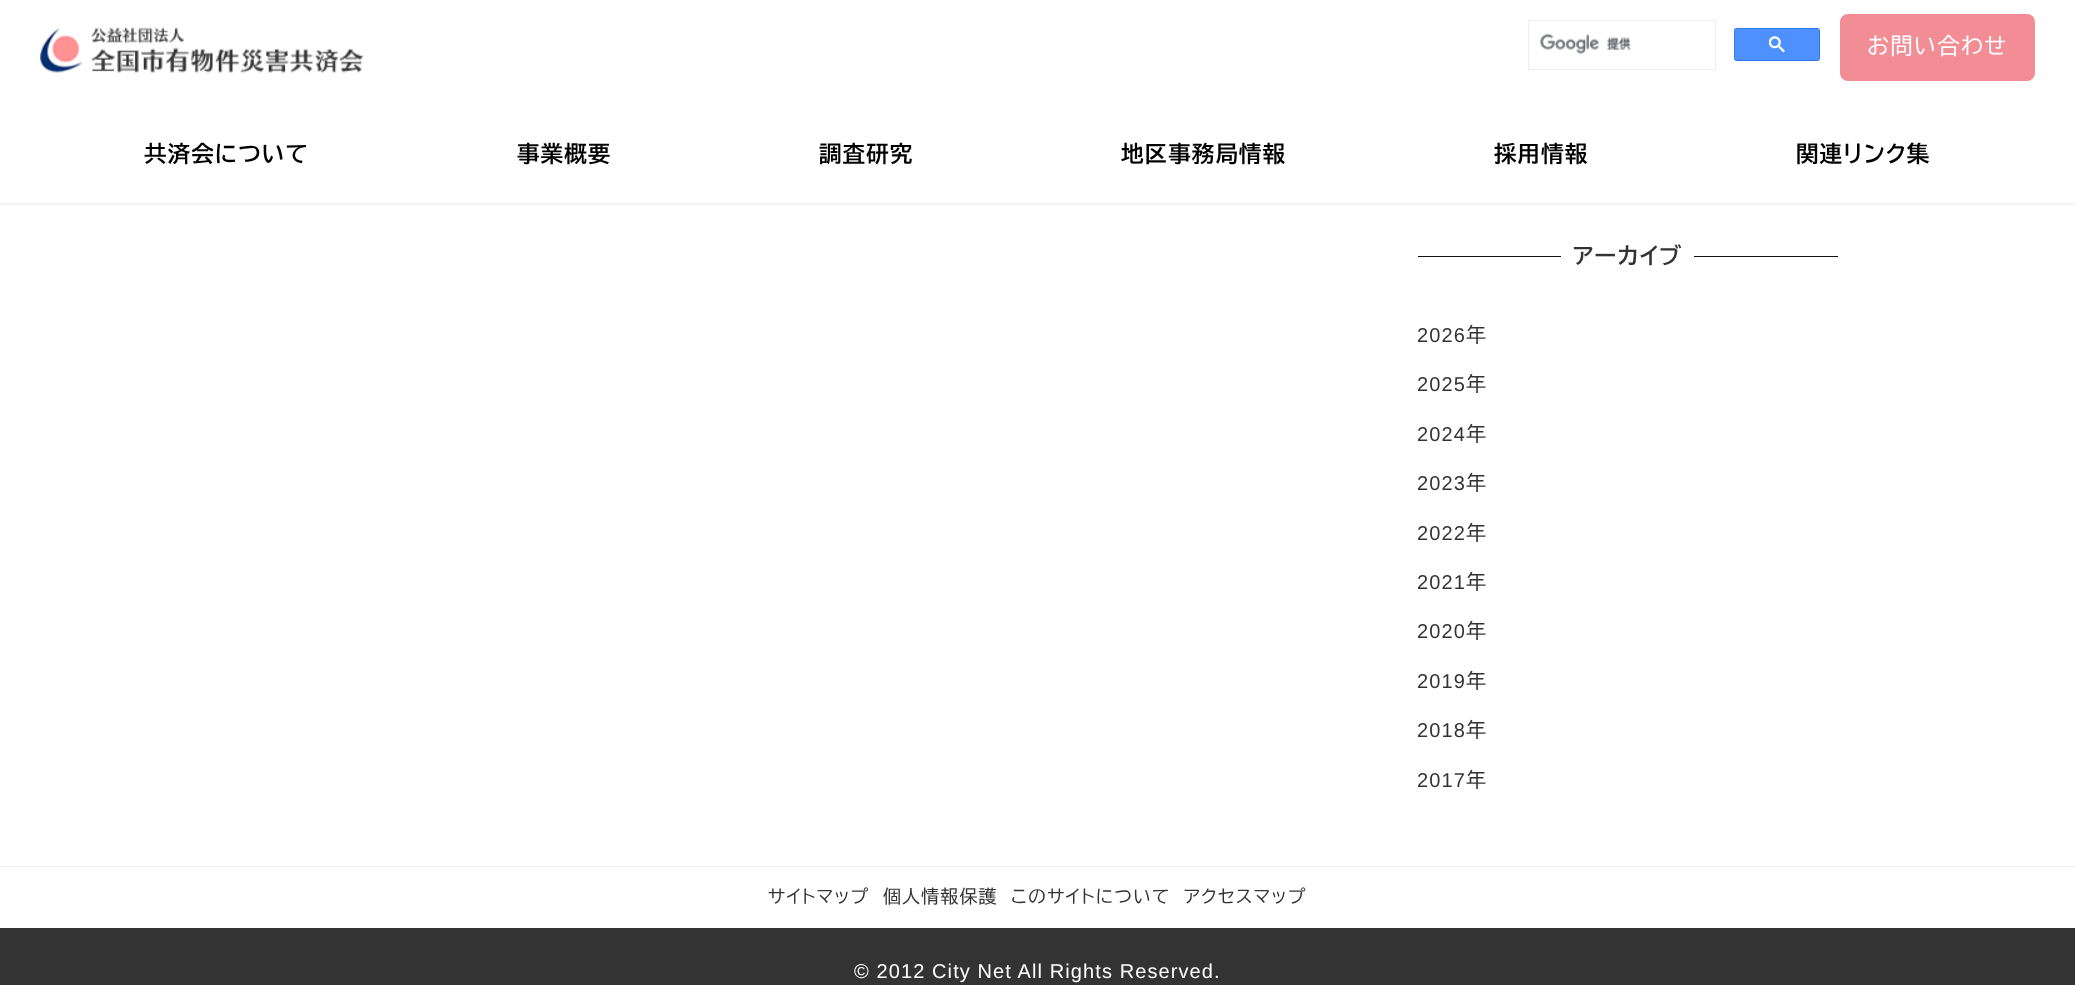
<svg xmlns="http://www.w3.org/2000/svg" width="2075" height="985">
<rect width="100%" height="100%" fill="#fff"/>
<rect x="-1" width="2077" height="205" fill="#0000000d" filter="blur(1px)"/>
<rect width="2075" height="203" fill="#fff"/>
<image x="40" y="27" width="324" height="46" href="media/1.png"/>
<rect x="1528.5" y="20.5" width="187" height="49" fill="none" stroke="#eee"/>
<image x="1540" y="33" width="91" height="21" href="media/2.png"/>
<rect x="1734.5" y="28.5" width="85" height="32" rx="2" fill="#4d90fe" stroke="#3079ed"/>
<image x="1769" y="36" width="16" height="17" href="media/3.png"/>
<rect x="1840" y="14" width="195" height="67" rx="8" fill="#f28d95"/>
<text x="1867" y="54" style="font-family:BIZ UDPGothic;font-size:22.5px;letter-spacing:1.1px;fill:#fff">お問い合わせ</text>
<text x="144" y="162" style="font-family:BIZ UDPGothic;font-size:22.5px;font-weight:bold;letter-spacing:1.1px;fill:#000">共済会について</text>
<text x="517" y="162" style="font-family:BIZ UDPGothic;font-size:22.5px;font-weight:bold;letter-spacing:1.1px;fill:#000">事業概要</text>
<text x="819" y="162" style="font-family:BIZ UDPGothic;font-size:22.5px;font-weight:bold;letter-spacing:1.1px;fill:#000">調査研究</text>
<text x="1121" y="162" style="font-family:BIZ UDPGothic;font-size:22.5px;font-weight:bold;letter-spacing:1.1px;fill:#000">地区事務局情報</text>
<text x="1494" y="162" style="font-family:BIZ UDPGothic;font-size:22.5px;font-weight:bold;letter-spacing:1.1px;fill:#000">採用情報</text>
<text x="1796" y="162" style="font-family:BIZ UDPGothic;font-size:22.5px;font-weight:bold;letter-spacing:1.1px;fill:#000">関連リンク集</text>
<rect x="1418" y="256" width="143" height="1" fill="#111"/>
<text x="1573" y="264" style="font-family:BIZ UDPGothic;font-size:22.5px;font-weight:bold;letter-spacing:1.1px;fill:#333">アーカイブ</text>
<rect x="1694" y="256" width="144" height="1" fill="#111"/>
<text x="1417" y="342" style="font-family:Liberation Sans;font-size:20px;letter-spacing:1.1px;fill:#333">2026</text>
<text x="1466" y="342" style="font-family:BIZ UDPGothic;font-size:20px;letter-spacing:1.1px;fill:#333">年</text>
<text x="1417" y="391" style="font-family:Liberation Sans;font-size:20px;letter-spacing:1.1px;fill:#333">2025</text>
<text x="1466" y="391" style="font-family:BIZ UDPGothic;font-size:20px;letter-spacing:1.1px;fill:#333">年</text>
<text x="1417" y="441" style="font-family:Liberation Sans;font-size:20px;letter-spacing:1.1px;fill:#333">2024</text>
<text x="1466" y="441" style="font-family:BIZ UDPGothic;font-size:20px;letter-spacing:1.1px;fill:#333">年</text>
<text x="1417" y="490" style="font-family:Liberation Sans;font-size:20px;letter-spacing:1.1px;fill:#333">2023</text>
<text x="1466" y="490" style="font-family:BIZ UDPGothic;font-size:20px;letter-spacing:1.1px;fill:#333">年</text>
<text x="1417" y="540" style="font-family:Liberation Sans;font-size:20px;letter-spacing:1.1px;fill:#333">2022</text>
<text x="1466" y="540" style="font-family:BIZ UDPGothic;font-size:20px;letter-spacing:1.1px;fill:#333">年</text>
<text x="1417" y="589" style="font-family:Liberation Sans;font-size:20px;letter-spacing:1.1px;fill:#333">2021</text>
<text x="1466" y="589" style="font-family:BIZ UDPGothic;font-size:20px;letter-spacing:1.1px;fill:#333">年</text>
<text x="1417" y="638" style="font-family:Liberation Sans;font-size:20px;letter-spacing:1.1px;fill:#333">2020</text>
<text x="1466" y="638" style="font-family:BIZ UDPGothic;font-size:20px;letter-spacing:1.1px;fill:#333">年</text>
<text x="1417" y="688" style="font-family:Liberation Sans;font-size:20px;letter-spacing:1.1px;fill:#333">2019</text>
<text x="1466" y="688" style="font-family:BIZ UDPGothic;font-size:20px;letter-spacing:1.1px;fill:#333">年</text>
<text x="1417" y="737" style="font-family:Liberation Sans;font-size:20px;letter-spacing:1.1px;fill:#333">2018</text>
<text x="1466" y="737" style="font-family:BIZ UDPGothic;font-size:20px;letter-spacing:1.1px;fill:#333">年</text>
<text x="1417" y="787" style="font-family:Liberation Sans;font-size:20px;letter-spacing:1.1px;fill:#333">2017</text>
<text x="1466" y="787" style="font-family:BIZ UDPGothic;font-size:20px;letter-spacing:1.1px;fill:#333">年</text>
<rect y="866" width="2075" height="1" fill="#eee"/>
<text x="768" y="903" style="font-family:BIZ UDPGothic;font-size:18px;letter-spacing:1.1px;fill:#333">サイトマップ</text>
<text x="883" y="903" style="font-family:BIZ UDPGothic;font-size:18px;letter-spacing:1.1px;fill:#333">個人情報保護</text>
<text x="1011" y="903" style="font-family:BIZ UDPGothic;font-size:18px;letter-spacing:1.1px;fill:#333">このサイトについて</text>
<text x="1184" y="903" style="font-family:BIZ UDPGothic;font-size:18px;letter-spacing:1.1px;fill:#333">アクセスマップ</text>
<rect y="928" width="2075" height="57" fill="#333"/>
<text x="854" y="978" style="font-family:Liberation Sans;font-size:20px;letter-spacing:1.1px;fill:#fff">© 2012 City Net All Rights Reserved.</text>
</svg>
